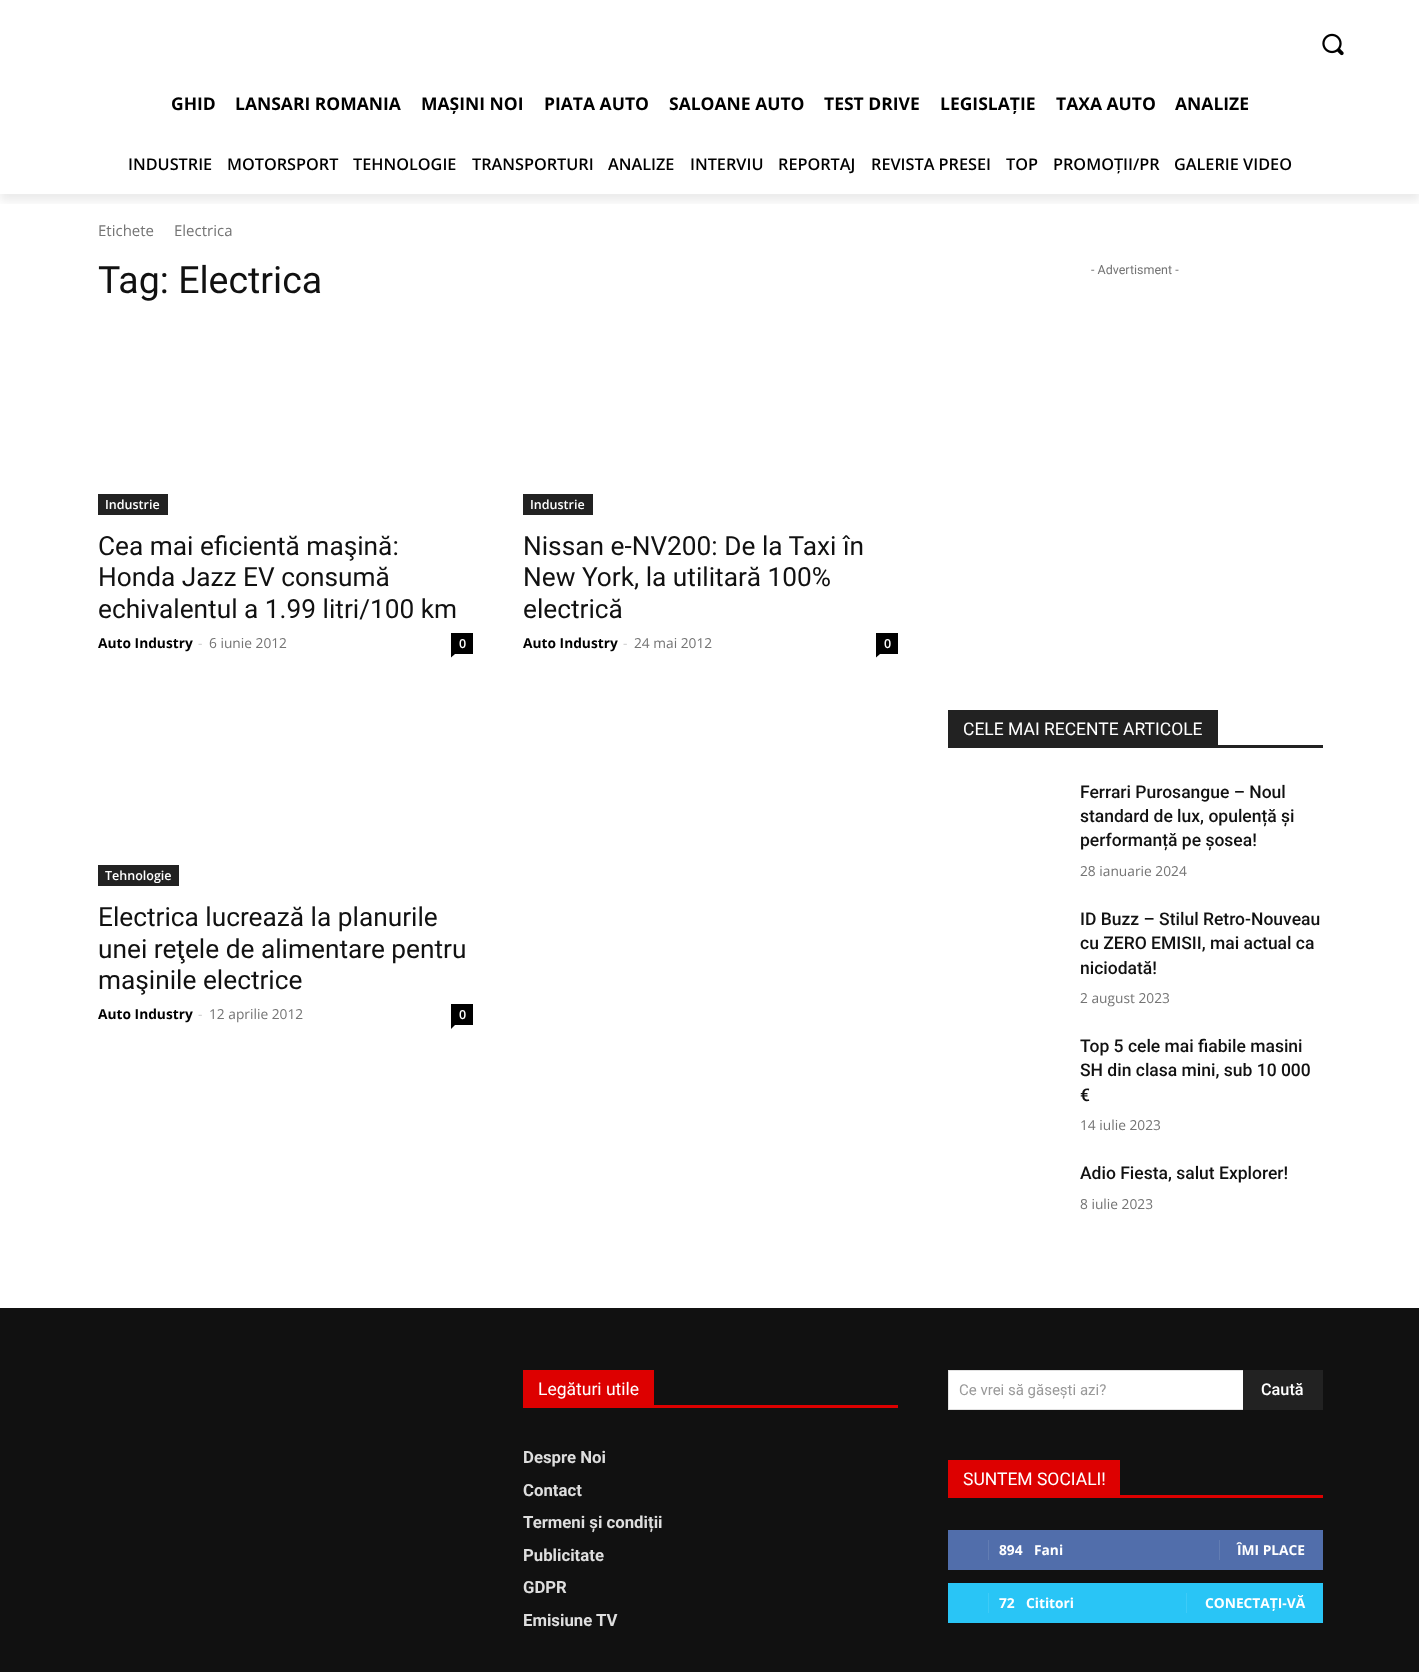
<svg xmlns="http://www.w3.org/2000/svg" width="1419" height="1672">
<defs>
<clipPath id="clip1"><rect x="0" y="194" width="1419" height="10"/></clipPath>
</defs>
<rect width="100%" height="100%" fill="#fff"/>
<g clip-path="url(#clip1)">
<rect y="-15" width="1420" height="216" fill="#00000014" filter="blur(5px)"/>
</g>
<image x="1322" y="33" width="22" height="23" href="media/1.png"/>
<text x="171" y="110" style="font-family:Open Sans;font-size:17.5px;font-weight:bold;fill:#000">GHID</text>
<text x="235" y="110" style="font-family:Open Sans;font-size:17.5px;font-weight:bold;fill:#000">LANSARI ROMANIA</text>
<text x="421" y="110" style="font-family:Open Sans;font-size:17.5px;font-weight:bold;fill:#000">MAȘINI NOI</text>
<text x="544" y="110" style="font-family:Open Sans;font-size:17.5px;font-weight:bold;fill:#000">PIATA AUTO</text>
<text x="669" y="110" style="font-family:Open Sans;font-size:17.5px;font-weight:bold;fill:#000">SALOANE AUTO</text>
<text x="824" y="110" style="font-family:Open Sans;font-size:17.5px;font-weight:bold;fill:#000">TEST DRIVE</text>
<text x="940" y="110" style="font-family:Open Sans;font-size:17.5px;font-weight:bold;fill:#000">LEGISLAȚIE</text>
<text x="1056" y="110" style="font-family:Open Sans;font-size:17.5px;font-weight:bold;fill:#000">TAXA AUTO</text>
<text x="1175" y="110" style="font-family:Open Sans;font-size:17.5px;font-weight:bold;fill:#000">ANALIZE</text>
<text x="128" y="170" style="font-family:Open Sans;font-size:16.25px;font-weight:600;fill:#000">INDUSTRIE</text>
<text x="227" y="170" style="font-family:Open Sans;font-size:16.25px;font-weight:600;fill:#000">MOTORSPORT</text>
<text x="353" y="170" style="font-family:Open Sans;font-size:16.25px;font-weight:600;fill:#000">TEHNOLOGIE</text>
<text x="472" y="170" style="font-family:Open Sans;font-size:16.25px;font-weight:600;fill:#000">TRANSPORTURI</text>
<text x="608" y="170" style="font-family:Open Sans;font-size:16.25px;font-weight:600;fill:#000">ANALIZE</text>
<text x="690" y="170" style="font-family:Open Sans;font-size:16.25px;font-weight:600;fill:#000">INTERVIU</text>
<text x="778" y="170" style="font-family:Open Sans;font-size:16.25px;font-weight:600;fill:#000">REPORTAJ</text>
<text x="871" y="170" style="font-family:Open Sans;font-size:16.25px;font-weight:600;fill:#000">REVISTA PRESEI</text>
<text x="1006" y="170" style="font-family:Open Sans;font-size:16.25px;font-weight:600;fill:#000">TOP</text>
<text x="1053" y="170" style="font-family:Open Sans;font-size:16.25px;font-weight:600;fill:#000">PROMOȚII/PR</text>
<text x="1174" y="170" style="font-family:Open Sans;font-size:16.25px;font-weight:600;fill:#000">GALERIE VIDEO</text>
<text x="98" y="236" style="font-family:Open Sans;font-size:15px;fill:#747474">Etichete</text>
<text x="174" y="236" style="font-family:Open Sans;font-size:15px;fill:#747474">Electrica</text>
<text x="98" y="293" style="font-family:Roboto;font-size:37.5px;fill:#111">Tag: Electrica</text>
<rect x="98" y="494" width="70" height="21" fill="#222"/>
<text x="105" y="509" style="font-family:Open Sans;font-size:12.5px;font-weight:600;fill:#fff">Industrie</text>
<text x="98" y="555" style="font-family:Roboto;font-size:26.25px;fill:#111">Cea mai eficientă maşină:</text>
<text x="98" y="586" style="font-family:Roboto;font-size:26.25px;fill:#111">Honda Jazz EV consumă</text>
<text x="98" y="618" style="font-family:Roboto;font-size:26.25px;fill:#111">echivalentul a 1.99 litri/100 km</text>
<text x="98" y="648" style="font-family:Open Sans;font-size:13.75px;font-weight:bold;fill:#000">Auto Industry</text>
<text x="198" y="648" style="font-family:Open Sans;font-size:13.75px;fill:#ccc">-</text>
<text x="209" y="648" style="font-family:Open Sans;font-size:13.75px;fill:#747474">6 iunie 2012</text>
<rect x="451" y="633" width="22" height="21" fill="#000"/>
<text x="459" y="648" style="font-family:Open Sans;font-size:12.5px;font-weight:600;fill:#fff">0</text>
<path d="M451 654h4l-4 3.5z" fill="#000"/>
<rect x="523" y="494" width="70" height="21" fill="#222"/>
<text x="530" y="509" style="font-family:Open Sans;font-size:12.5px;font-weight:600;fill:#fff">Industrie</text>
<text x="523" y="555" style="font-family:Roboto;font-size:26.25px;fill:#111">Nissan e-NV200: De la Taxi în</text>
<text x="523" y="586" style="font-family:Roboto;font-size:26.25px;fill:#111">New York, la utilitară 100%</text>
<text x="523" y="618" style="font-family:Roboto;font-size:26.25px;fill:#111">electrică</text>
<text x="523" y="648" style="font-family:Open Sans;font-size:13.75px;font-weight:bold;fill:#000">Auto Industry</text>
<text x="623" y="648" style="font-family:Open Sans;font-size:13.75px;fill:#ccc">-</text>
<text x="634" y="648" style="font-family:Open Sans;font-size:13.75px;fill:#747474">24 mai 2012</text>
<rect x="876" y="633" width="22" height="21" fill="#000"/>
<text x="884" y="648" style="font-family:Open Sans;font-size:12.5px;font-weight:600;fill:#fff">0</text>
<path d="M876 654h4l-4 3.5z" fill="#000"/>
<rect x="98" y="865" width="81" height="21" fill="#222"/>
<text x="105" y="880" style="font-family:Open Sans;font-size:12.5px;font-weight:600;fill:#fff">Tehnologie</text>
<text x="98" y="926" style="font-family:Roboto;font-size:26.25px;fill:#111">Electrica lucrează la planurile</text>
<text x="98" y="958" style="font-family:Roboto;font-size:26.25px;fill:#111">unei reţele de alimentare pentru</text>
<text x="98" y="989" style="font-family:Roboto;font-size:26.25px;fill:#111">maşinile electrice</text>
<text x="98" y="1019" style="font-family:Open Sans;font-size:13.75px;font-weight:bold;fill:#000">Auto Industry</text>
<text x="198" y="1019" style="font-family:Open Sans;font-size:13.75px;fill:#ccc">-</text>
<text x="209" y="1019" style="font-family:Open Sans;font-size:13.75px;fill:#747474">12 aprilie 2012</text>
<rect x="451" y="1004" width="22" height="21" fill="#000"/>
<text x="459" y="1019" style="font-family:Open Sans;font-size:12.5px;font-weight:600;fill:#fff">0</text>
<path d="M451 1025h4l-4 4z" fill="#000"/>
<text x="1091" y="274" style="font-family:Roboto;font-size:12.5px;fill:#747474">- Advertisment -</text>
<rect x="948" y="745" width="375" height="3" fill="#222"/>
<rect x="948" y="710" width="270" height="35" fill="#222"/>
<text x="963" y="735" style="font-family:Roboto;font-size:17.5px;fill:#fff">CELE MAI RECENTE ARTICOLE</text>
<text x="1080" y="798" style="font-family:Roboto;font-size:17.5px;font-weight:500;fill:#111">Ferrari Purosangue – Noul</text>
<text x="1080" y="822" style="font-family:Roboto;font-size:17.5px;font-weight:500;fill:#111">standard de lux, opulență și</text>
<text x="1080" y="846" style="font-family:Roboto;font-size:17.5px;font-weight:500;fill:#111">performanță pe șosea!</text>
<text x="1080" y="876" style="font-family:Open Sans;font-size:13.75px;fill:#747474">28 ianuarie 2024</text>
<text x="1080" y="925" style="font-family:Roboto;font-size:17.5px;font-weight:500;fill:#111">ID Buzz – Stilul Retro-Nouveau</text>
<text x="1080" y="949" style="font-family:Roboto;font-size:17.5px;font-weight:500;fill:#111">cu ZERO EMISII, mai actual ca</text>
<text x="1080" y="974" style="font-family:Roboto;font-size:17.5px;font-weight:500;fill:#111">niciodată!</text>
<text x="1080" y="1003" style="font-family:Open Sans;font-size:13.75px;fill:#747474">2 august 2023</text>
<text x="1080" y="1052" style="font-family:Roboto;font-size:17.5px;font-weight:500;fill:#111">Top 5 cele mai fiabile masini</text>
<text x="1080" y="1076" style="font-family:Roboto;font-size:17.5px;font-weight:500;fill:#111">SH din clasa mini, sub 10 000</text>
<text x="1080" y="1101" style="font-family:Roboto;font-size:17.5px;font-weight:500;fill:#111">€</text>
<text x="1080" y="1130" style="font-family:Open Sans;font-size:13.75px;fill:#747474">14 iulie 2023</text>
<text x="1080" y="1179" style="font-family:Roboto;font-size:17.5px;font-weight:500;fill:#111">Adio Fiesta, salut Explorer!</text>
<text x="1080" y="1209" style="font-family:Open Sans;font-size:13.75px;fill:#747474">8 iulie 2023</text>
<rect y="1308" width="1419" height="364" fill="#111"/>
<rect x="523" y="1405" width="375" height="3" fill="#d00"/>
<rect x="523" y="1370" width="131" height="35" fill="#d00"/>
<text x="538" y="1395" style="font-family:Roboto;font-size:17.5px;fill:#fff">Legături utile</text>
<text x="523" y="1463" style="font-family:Roboto;font-size:16.75px;font-weight:bold;fill:#dedede">Despre Noi</text>
<text x="523" y="1496" style="font-family:Roboto;font-size:16.75px;font-weight:bold;fill:#dedede">Contact</text>
<text x="523" y="1528" style="font-family:Roboto;font-size:16.75px;font-weight:bold;fill:#dedede">Termeni și condiții</text>
<text x="523" y="1561" style="font-family:Roboto;font-size:16.75px;font-weight:bold;fill:#dedede">Publicitate</text>
<text x="523" y="1593" style="font-family:Roboto;font-size:16.75px;font-weight:bold;fill:#dedede">GDPR</text>
<text x="523" y="1626" style="font-family:Roboto;font-size:16.75px;font-weight:bold;fill:#dedede">Emisiune TV</text>
<rect x="949" y="1371" width="294" height="38" fill="#fff"/>
<rect x="948.5" y="1370.5" width="374" height="39" fill="none" stroke="#e1e1e1"/>
<text x="959" y="1395" style="font-family:Roboto;font-size:15px;fill:#999">Ce vrei să găsești azi?</text>
<rect x="1243" y="1370" width="80" height="40" fill="#222"/>
<text x="1261" y="1395" style="font-family:Roboto;font-size:16.25px;font-weight:500;fill:#fff">Caută</text>
<rect x="948" y="1495" width="375" height="3" fill="#d00"/>
<rect x="948" y="1460" width="172" height="35" fill="#d00"/>
<text x="963" y="1485" style="font-family:Roboto;font-size:17.5px;fill:#fff">SUNTEM SOCIALI!</text>
<rect x="948" y="1530" width="375" height="40" fill="#516eab"/>
<rect x="988" y="1540" width="1" height="20" fill="#627db3"/>
<text x="999" y="1555" style="font-family:Open Sans;font-size:13.75px;font-weight:bold;fill:#fff">894</text>
<text x="1034" y="1555" style="font-family:Open Sans;font-size:13.75px;font-weight:bold;fill:#fff">Fani</text>
<rect x="1219" y="1540" width="1" height="20" fill="#627db3"/>
<text x="1237" y="1555" style="font-family:Open Sans;font-size:13.75px;font-weight:bold;fill:#fff">ÎMI PLACE</text>
<rect x="948" y="1583" width="375" height="40" fill="#29c5f6"/>
<rect x="988" y="1593" width="1" height="20" fill="#3ecbf7"/>
<text x="999" y="1608" style="font-family:Open Sans;font-size:13.75px;font-weight:bold;fill:#fff">72</text>
<text x="1026" y="1608" style="font-family:Open Sans;font-size:13.75px;font-weight:bold;fill:#fff">Cititori</text>
<rect x="1186" y="1593" width="1" height="20" fill="#3ecbf7"/>
<text x="1205" y="1608" style="font-family:Open Sans;font-size:13.75px;font-weight:bold;fill:#fff">CONECTAȚI-VĂ</text>
</svg>
